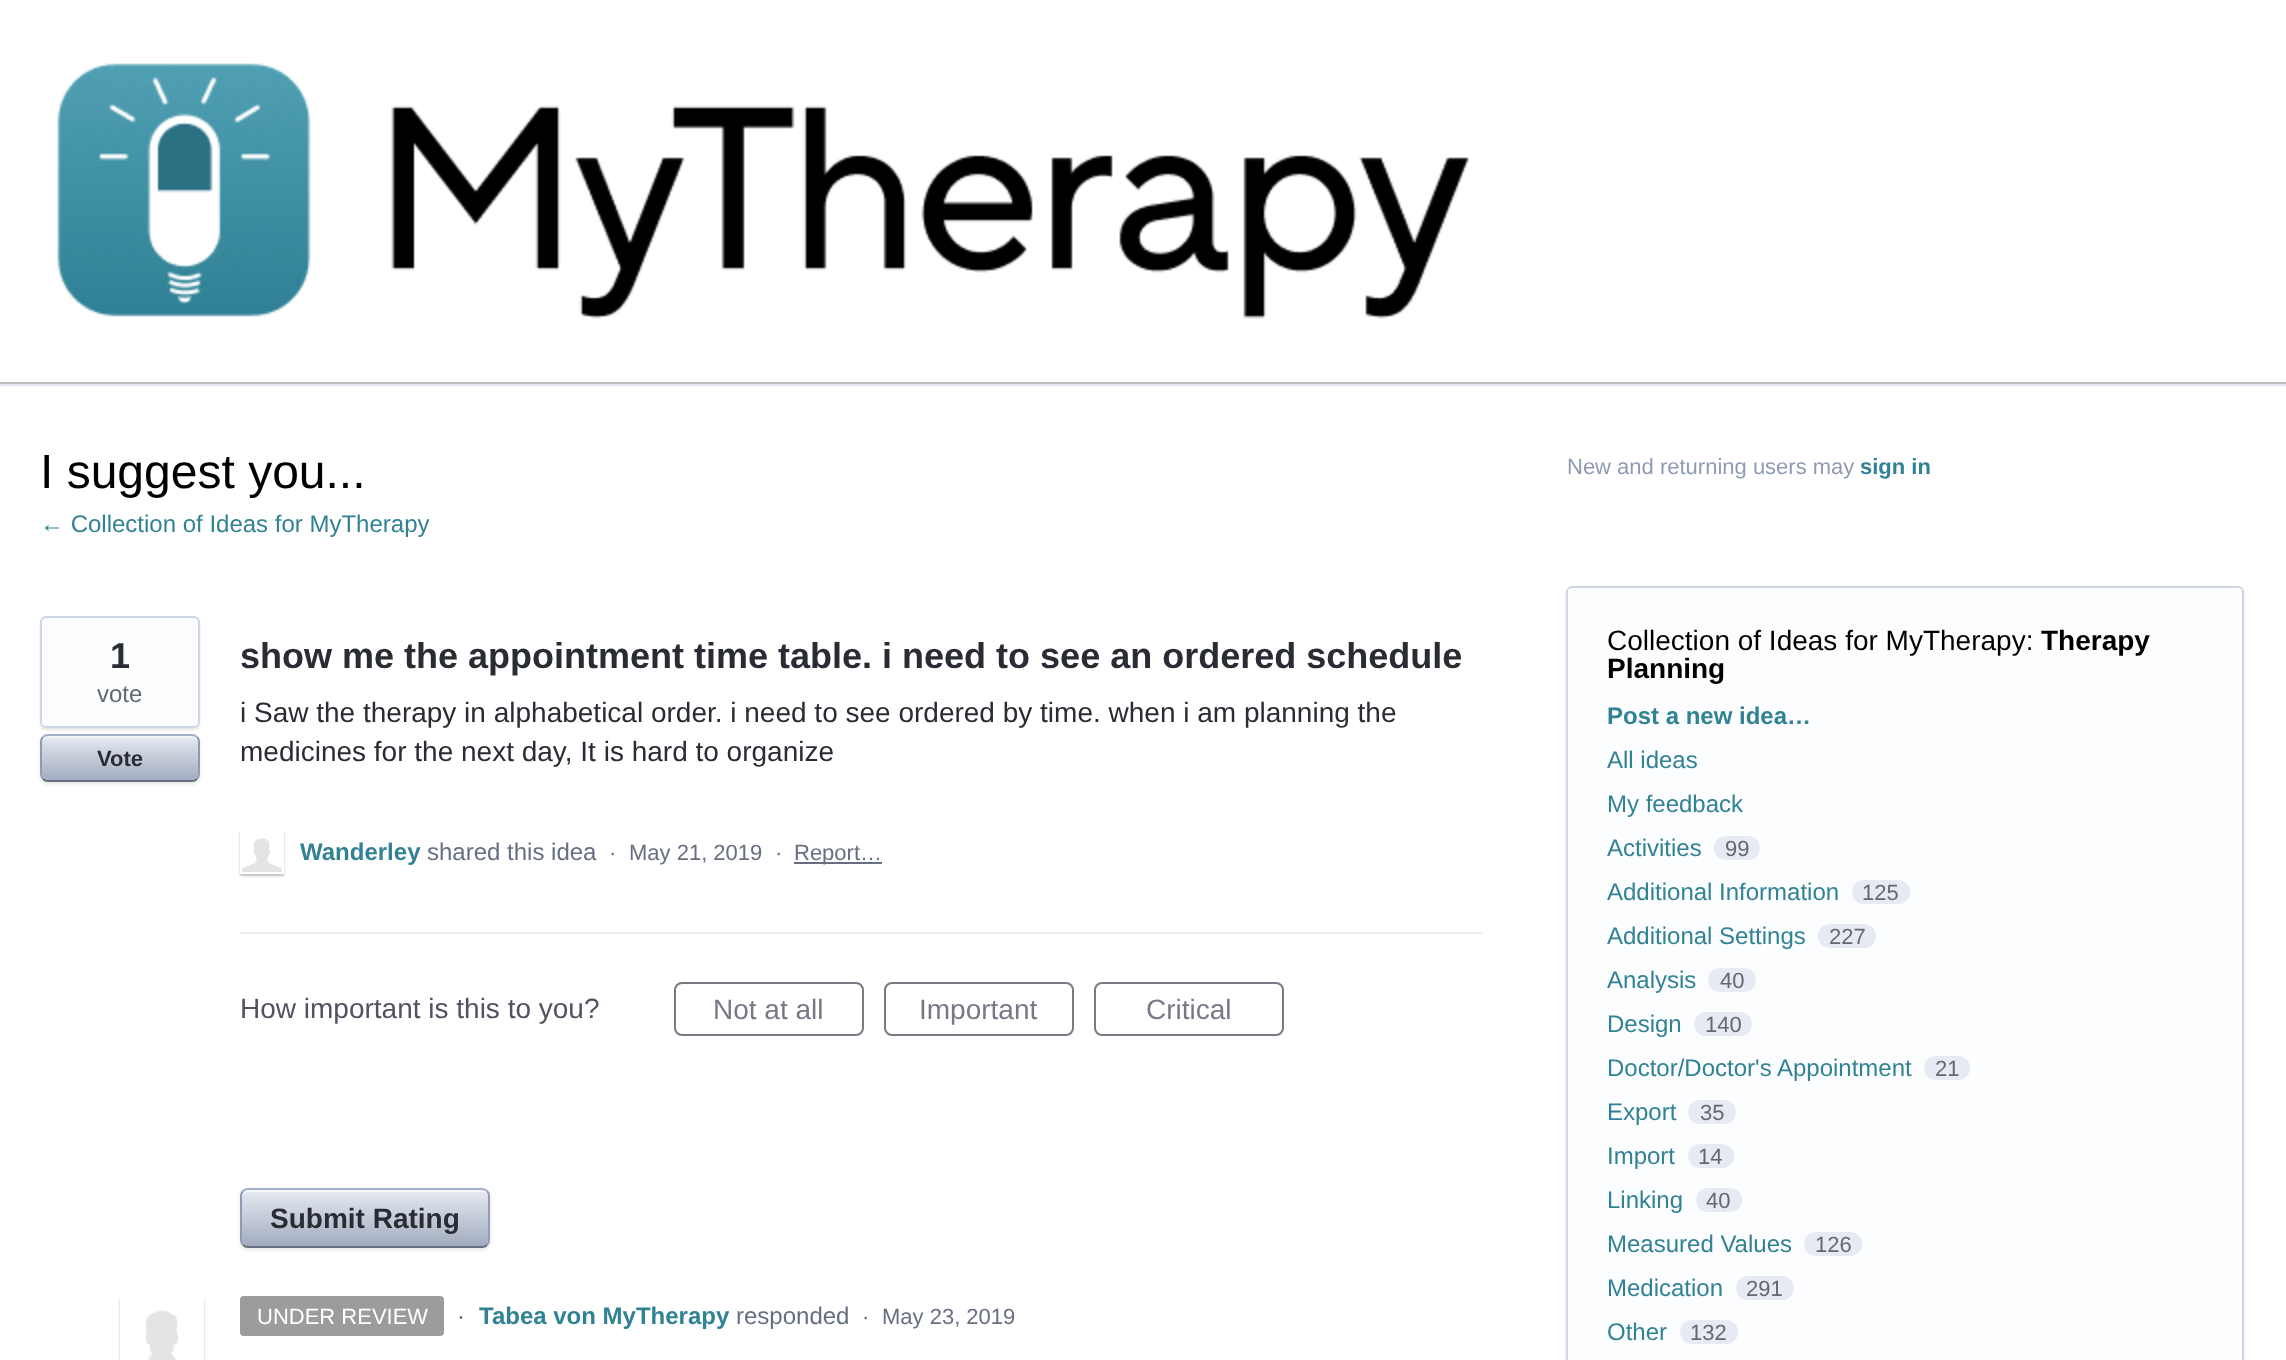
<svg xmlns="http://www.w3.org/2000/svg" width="2286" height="1360">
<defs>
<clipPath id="clip1"><path d="M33 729h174v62h-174zm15 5h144c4.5 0 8 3.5 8 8v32c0 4.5-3.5 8-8 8h-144c-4.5 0-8-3.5-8-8v-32c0-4.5 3.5-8 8-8z" clip-rule="evenodd"/></clipPath>
<linearGradient id="g1" gradientUnits="userSpaceOnUse" x1="42" y1="736" x2="42" y2="780"><stop offset="0" stop-color="#e6eaf2"/><stop offset="1" stop-color="#a2acbf"/></linearGradient>
<clipPath id="clip2"><path d="M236 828h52v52h-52zm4 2h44v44h-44z" clip-rule="evenodd"/></clipPath>
<linearGradient id="g2" gradientUnits="userSpaceOnUse" x1="242" y1="1190" x2="242" y2="1246"><stop offset="0" stop-color="#e6eaf2"/><stop offset="1" stop-color="#a2acbf"/></linearGradient>
<clipPath id="clip3"><path d="M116 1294h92v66h-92zm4 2h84v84h-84z" clip-rule="evenodd"/></clipPath>
</defs>
<rect width="100%" height="100%" fill="#fff"/>
<rect y="382" width="2286" height="2" fill="#bfbfbf"/>
<image x="57" y="63" width="1412" height="256" href="media/1.png"/>
<rect y="384" width="2286" height="2" fill="#e3e8f2"/>
<text x="40" y="488" style="font-family:Liberation Sans;font-size:48px;fill:#000">I suggest you...</text>
<text x="40" y="532" style="font-family:Liberation Sans;font-size:24px;fill:#318294">← Collection of Ideas for MyTherapy</text>
<rect x="40" y="618" width="160" height="112" rx="6" fill="#0000001a" filter="blur(1px)"/>
<rect x="41" y="617" width="158" height="110" rx="5" fill="#fcfdff" stroke="#cfd7e6" stroke-width="2"/>
<text x="110" y="668" style="font-family:Liberation Sans;font-size:36px;font-weight:bold;fill:#292c33">1</text>
<text x="97" y="702" style="font-family:Liberation Sans;font-size:24px;fill:#616973">vote</text>
<g clip-path="url(#clip1)">
<rect x="40" y="736" width="160" height="48" rx="8" fill="#0000001a" filter="blur(2px)"/>
</g>
<rect x="42" y="736" width="156" height="44" rx="6" fill="url(#g1)"/>
<path d="M48 738h144c3 0 6 3 6 6v-2c0-3-3-6-6-6h-144c-3 0-6 3-6 6v2c0-3 3-6 6-6z" fill="#ffffff80"/>
<path d="M43 737c1.5-1.5 3-2 5-2h144c2 0 3.5 .5 5 2" fill="none" stroke="#a3b1cc" stroke-width="2"/>
<path d="M197 737c1.5 1.5 2 3 2 5v32c0 2-.5 3.5-2 5" fill="none" stroke="#8f9bb3" stroke-width="2"/>
<path d="M197 779c-1.5 1.5-3 2-5 2h-144c-2 0-3.5-.5-5-2" fill="none" stroke="#666f80" stroke-width="2"/>
<path d="M43 779c-1.5-1.5-2-3-2-5v-32c0-2 .5-3.5 2-5" fill="none" stroke="#8f9bb3" stroke-width="2"/>
<text x="97" y="766" style="font-family:Liberation Sans;font-size:22px;font-weight:bold;fill:#292c33">Vote</text>
<text x="240" y="668" style="font-family:Liberation Sans;font-size:36px;font-weight:bold;fill:#292c33">show me the appointment time table. i need to see an ordered schedule</text>
<text x="240" y="722" style="font-family:Liberation Sans;font-size:28px;fill:#292c33">i Saw the therapy in alphabetical order. i need to see ordered by time. when i am planning the</text>
<text x="240" y="761" style="font-family:Liberation Sans;font-size:28px;fill:#292c33">medicines for the next day, It is hard to organize</text>
<g clip-path="url(#clip2)">
<rect x="240" y="832" width="44" height="44" fill="#00000040" filter="blur(1px)"/>
</g>
<image x="242" y="838" width="40" height="34" href="media/2.png"/>
<text x="300" y="860" style="font-family:Liberation Sans;font-size:24px;font-weight:bold;fill:#318294">Wanderley</text>
<text x="427" y="860" style="font-family:Liberation Sans;font-size:24px;fill:#666f80">shared this idea</text>
<text x="609" y="860" style="font-family:Liberation Sans;font-size:22px;fill:#616973">·</text>
<text x="629" y="860" style="font-family:Liberation Sans;font-size:22px;fill:#666f80">May 21, 2019</text>
<text x="775" y="860" style="font-family:Liberation Sans;font-size:22px;fill:#616973">·</text>
<rect x="794" y="862" width="88" height="2" fill="#666f80"/>
<text x="794" y="860" style="font-family:Liberation Sans;font-size:22px;fill:#666f80">Report…</text>
<rect x="240" y="932" width="1242" height="2" fill="#ebebf1"/>
<text x="240" y="1018" style="font-family:Liberation Sans;font-size:28px;fill:#525260">How important is this to you?</text>
<rect x="675" y="983" width="188" height="52" rx="7" fill="none" stroke="#797986" stroke-width="2"/>
<text x="713" y="1019" style="font-family:Liberation Sans;font-size:28px;fill:#797986">Not at all</text>
<rect x="885" y="983" width="188" height="52" rx="7" fill="none" stroke="#797986" stroke-width="2"/>
<text x="919" y="1019" style="font-family:Liberation Sans;font-size:28px;fill:#797986">Important</text>
<rect x="1095" y="983" width="188" height="52" rx="7" fill="none" stroke="#797986" stroke-width="2"/>
<text x="1146" y="1019" style="font-family:Liberation Sans;font-size:28px;fill:#797986">Critical</text>
<rect x="240" y="1190" width="250" height="60" rx="8" fill="#0000001a" filter="blur(2px)"/>
<rect x="242" y="1190" width="246" height="56" rx="6" fill="url(#g2)"/>
<path d="M248 1192h234c3 0 6 3 6 6v-2c0-3-3-6-6-6h-234c-3 0-6 3-6 6v2c0-3 3-6 6-6z" fill="#ffffff80"/>
<path d="M243 1191c1.5-1.5 3-2 5-2h234c2 0 3.5 .5 5 2" fill="none" stroke="#a3b1cc" stroke-width="2"/>
<path d="M487 1191c1.5 1.5 2 3 2 5v44c0 2-.5 3.5-2 5" fill="none" stroke="#8f9bb3" stroke-width="2"/>
<path d="M487 1245c-1.5 1.5-3 2-5 2h-234c-2 0-3.5-.5-5-2" fill="none" stroke="#666f80" stroke-width="2"/>
<path d="M243 1245c-1.5-1.5-2-3-2-5v-44c0-2 .5-3.5 2-5" fill="none" stroke="#8f9bb3" stroke-width="2"/>
<text x="270" y="1228" style="font-family:Liberation Sans;font-size:28px;font-weight:bold;fill:#292c33">Submit Rating</text>
<rect x="240" y="1296" width="204" height="40" rx="4" fill="#9c9c9c"/>
<text x="257" y="1324" style="font-family:Liberation Sans;font-size:22px;fill:#fff">UNDER REVIEW</text>
<text x="457" y="1324" style="font-family:Liberation Sans;font-size:24px;fill:#616973">·</text>
<g clip-path="url(#clip3)">
<rect x="120" y="1298" width="84" height="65" fill="#00000040" filter="blur(1px)"/>
</g>
<image x="145" y="1310" width="33" height="50" href="media/3.png"/>
<text x="479" y="1324" style="font-family:Liberation Sans;font-size:24px;font-weight:bold;fill:#318294">Tabea von MyTherapy</text>
<text x="736" y="1324" style="font-family:Liberation Sans;font-size:24px;fill:#666f80">responded</text>
<text x="862" y="1324" style="font-family:Liberation Sans;font-size:22px;fill:#616973">·</text>
<text x="882" y="1324" style="font-family:Liberation Sans;font-size:22px;fill:#666f80">May 23, 2019</text>
<text x="1567" y="474" style="font-family:Liberation Sans;font-size:22px;fill:#8f9bb3">New and returning users may</text>
<text x="1860" y="474" style="font-family:Liberation Sans;font-size:22px;font-weight:bold;fill:#318294">sign in</text>
<rect x="1566" y="588" width="678" height="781" rx="6" fill="#0000001a" filter="blur(1px)"/>
<rect x="1567" y="587" width="676" height="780" rx="5" fill="#fcfdff" stroke="#cfd7e6" stroke-width="2"/>
<text x="1607" y="650" style="font-family:Liberation Sans;font-size:28px;fill:#000">Collection of Ideas for MyTherapy:</text>
<text x="2041" y="650" style="font-family:Liberation Sans;font-size:28px;font-weight:bold;fill:#000">Therapy</text>
<text x="1607" y="678" style="font-family:Liberation Sans;font-size:28px;font-weight:bold;fill:#000">Planning</text>
<text x="1607" y="724" style="font-family:Liberation Sans;font-size:24px;font-weight:bold;fill:#318294">Post a new idea…</text>
<text x="1607" y="768" style="font-family:Liberation Sans;font-size:24px;fill:#318294">All ideas</text>
<text x="1607" y="812" style="font-family:Liberation Sans;font-size:24px;fill:#318294">My feedback</text>
<text x="1607" y="856" style="font-family:Liberation Sans;font-size:24px;fill:#318294">Activities</text>
<rect x="1714" y="836" width="46" height="24" rx="12" fill="#e7eaf2"/>
<text x="1725" y="856" style="font-family:Liberation Sans;font-size:22px;fill:#616973">99</text>
<text x="1607" y="900" style="font-family:Liberation Sans;font-size:24px;fill:#318294">Additional Information</text>
<rect x="1852" y="880" width="58" height="24" rx="12" fill="#e7eaf2"/>
<text x="1862" y="900" style="font-family:Liberation Sans;font-size:22px;fill:#616973">125</text>
<text x="1607" y="944" style="font-family:Liberation Sans;font-size:24px;fill:#318294">Additional Settings</text>
<rect x="1818" y="924" width="58" height="24" rx="12" fill="#e7eaf2"/>
<text x="1829" y="944" style="font-family:Liberation Sans;font-size:22px;fill:#616973">227</text>
<text x="1607" y="988" style="font-family:Liberation Sans;font-size:24px;fill:#318294">Analysis</text>
<rect x="1708" y="968" width="48" height="24" rx="12" fill="#e7eaf2"/>
<text x="1720" y="988" style="font-family:Liberation Sans;font-size:22px;fill:#616973">40</text>
<text x="1607" y="1032" style="font-family:Liberation Sans;font-size:24px;fill:#318294">Design</text>
<rect x="1694" y="1012" width="58" height="24" rx="12" fill="#e7eaf2"/>
<text x="1705" y="1032" style="font-family:Liberation Sans;font-size:22px;fill:#616973">140</text>
<text x="1607" y="1076" style="font-family:Liberation Sans;font-size:24px;fill:#318294">Doctor/Doctor's Appointment</text>
<rect x="1924" y="1056" width="46" height="24" rx="12" fill="#e7eaf2"/>
<text x="1935" y="1076" style="font-family:Liberation Sans;font-size:22px;fill:#616973">21</text>
<text x="1607" y="1120" style="font-family:Liberation Sans;font-size:24px;fill:#318294">Export</text>
<rect x="1688" y="1100" width="48" height="24" rx="12" fill="#e7eaf2"/>
<text x="1700" y="1120" style="font-family:Liberation Sans;font-size:22px;fill:#616973">35</text>
<text x="1607" y="1164" style="font-family:Liberation Sans;font-size:24px;fill:#318294">Import</text>
<rect x="1688" y="1144" width="46" height="24" rx="12" fill="#e7eaf2"/>
<text x="1698" y="1164" style="font-family:Liberation Sans;font-size:22px;fill:#616973">14</text>
<text x="1607" y="1208" style="font-family:Liberation Sans;font-size:24px;fill:#318294">Linking</text>
<rect x="1696" y="1188" width="46" height="24" rx="12" fill="#e7eaf2"/>
<text x="1706" y="1208" style="font-family:Liberation Sans;font-size:22px;fill:#616973">40</text>
<text x="1607" y="1252" style="font-family:Liberation Sans;font-size:24px;fill:#318294">Measured Values</text>
<rect x="1804" y="1232" width="58" height="24" rx="12" fill="#e7eaf2"/>
<text x="1815" y="1252" style="font-family:Liberation Sans;font-size:22px;fill:#616973">126</text>
<text x="1607" y="1296" style="font-family:Liberation Sans;font-size:24px;fill:#318294">Medication</text>
<rect x="1736" y="1276" width="58" height="24" rx="12" fill="#e7eaf2"/>
<text x="1746" y="1296" style="font-family:Liberation Sans;font-size:22px;fill:#616973">291</text>
<text x="1607" y="1340" style="font-family:Liberation Sans;font-size:24px;fill:#318294">Other</text>
<rect x="1680" y="1320" width="58" height="24" rx="12" fill="#e7eaf2"/>
<text x="1690" y="1340" style="font-family:Liberation Sans;font-size:22px;fill:#616973">132</text>
</svg>
